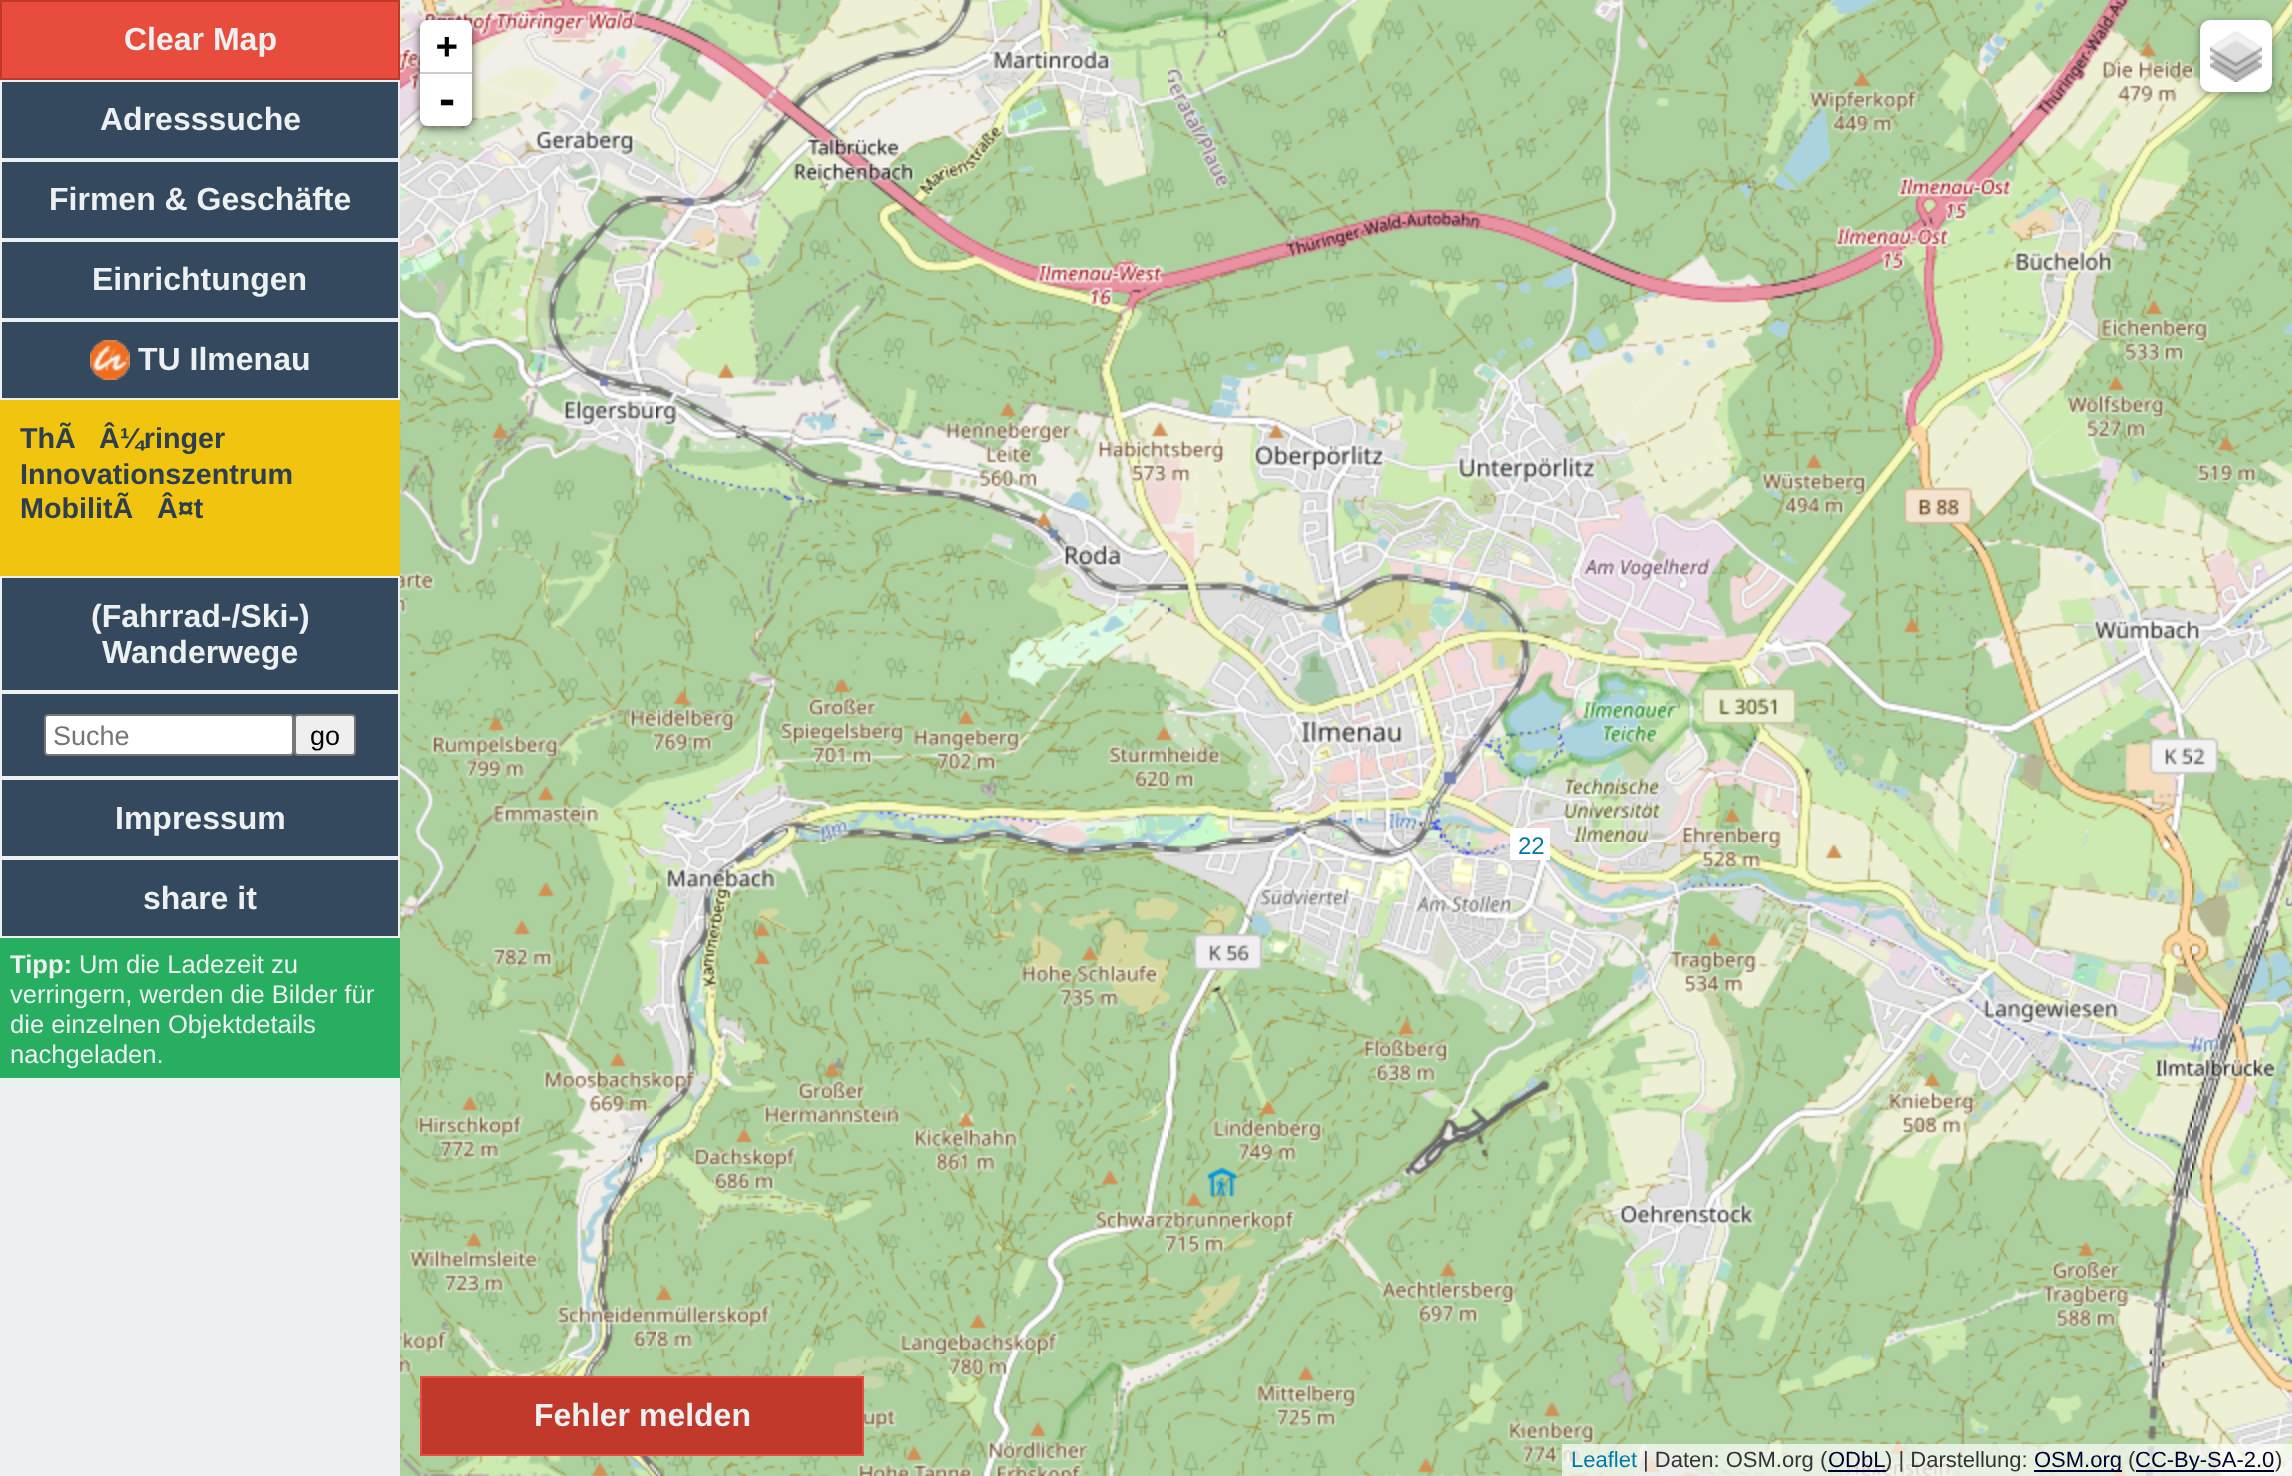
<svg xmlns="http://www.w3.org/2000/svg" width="2292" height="1476">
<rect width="100%" height="100%" fill="#ecf0f1"/>
<rect x="1" y="1" width="398" height="78" fill="#e74c3c" stroke="#c0392b" stroke-width="2"/>
<text x="124" y="50" style="font-family:Liberation Sans;font-size:32px;font-weight:bold;fill:#ecf0f1">Clear Map</text>
<rect x="2" y="82" width="396" height="76" fill="#34495e"/>
<text x="100" y="130" style="font-family:Liberation Sans;font-size:32px;font-weight:bold;fill:#ecf0f1">Adresssuche</text>
<rect x="2" y="162" width="396" height="76" fill="#34495e"/>
<text x="49" y="210" style="font-family:Liberation Sans;font-size:32px;font-weight:bold;fill:#ecf0f1">Firmen &amp; Geschäfte</text>
<rect x="2" y="242" width="396" height="76" fill="#34495e"/>
<text x="92" y="290" style="font-family:Liberation Sans;font-size:32px;font-weight:bold;fill:#ecf0f1">Einrichtungen</text>
<rect x="2" y="322" width="396" height="76" fill="#34495e"/>
<image x="90" y="340" width="40" height="40" href="media/1.png"/>
<text x="138" y="370" style="font-family:Liberation Sans;font-size:32px;font-weight:bold;fill:#ecf0f1">TU Ilmenau</text>
<rect y="400" width="400" height="176" fill="#f1c40f"/>
<text x="20" y="448" style="font-family:Liberation Sans;font-size:28.75px;font-weight:bold;fill:#2c3e50">ThÃ</text>
<text x="99" y="448" style="font-family:Liberation Sans;font-size:28.75px;font-weight:bold;fill:#2c3e50">Â¼ringer</text>
<text x="20" y="484" style="font-family:Liberation Sans;font-size:28.75px;font-weight:bold;fill:#2c3e50">Innovationszentrum</text>
<text x="20" y="518" style="font-family:Liberation Sans;font-size:28.75px;font-weight:bold;fill:#2c3e50">MobilitÃ</text>
<text x="157" y="518" style="font-family:Liberation Sans;font-size:28.75px;font-weight:bold;fill:#2c3e50">Â¤t</text>
<rect x="2" y="578" width="396" height="112" fill="#34495e"/>
<text x="91" y="627" style="font-family:Liberation Sans;font-size:32px;font-weight:bold;fill:#ecf0f1">(Fahrrad-/Ski-)</text>
<text x="102" y="663" style="font-family:Liberation Sans;font-size:32px;font-weight:bold;fill:#ecf0f1">Wanderwege</text>
<rect x="2" y="694" width="396" height="82" fill="#34495e"/>
<rect x="45" y="715" width="248" height="40" rx="3" fill="#fff" stroke="#767676" stroke-width="2"/>
<text x="53" y="745" style="font-family:Liberation Sans;font-size:27px;fill:#757575">Suche</text>
<rect x="295" y="715" width="60" height="40" rx="3" fill="#efefef" stroke="#767676" stroke-width="2"/>
<text x="310" y="745" style="font-family:Liberation Sans;font-size:27px;fill:#000">go</text>
<rect x="2" y="780" width="396" height="76" fill="#34495e"/>
<text x="115" y="829" style="font-family:Liberation Sans;font-size:32px;font-weight:bold;fill:#ecf0f1">Impressum</text>
<rect x="2" y="860" width="396" height="76" fill="#34495e"/>
<text x="143" y="909" style="font-family:Liberation Sans;font-size:32px;font-weight:bold;fill:#ecf0f1">share it</text>
<rect y="938" width="400" height="140" fill="#27ae60"/>
<text x="10" y="973" style="font-family:Liberation Sans;font-size:25.6px;font-weight:bold;fill:#ecf0f1">Tipp:</text>
<text x="79" y="973" style="font-family:Liberation Sans;font-size:25.6px;fill:#ecf0f1">Um die Ladezeit zu</text>
<text x="10" y="1003" style="font-family:Liberation Sans;font-size:25.6px;fill:#ecf0f1">verringern, werden die Bilder für</text>
<text x="10" y="1033" style="font-family:Liberation Sans;font-size:25.6px;fill:#ecf0f1">die einzelnen Objektdetails</text>
<text x="10" y="1063" style="font-family:Liberation Sans;font-size:25.6px;fill:#ecf0f1">nachgeladen.</text>
<image x="400" y="0" width="256" height="330" href="media/3.png"/>
<rect x="420" y="22" width="52" height="106" rx="8" fill="#000000a6" filter="blur(5px)"/>
<path d="M428 20h36c4.5 0 8 3.5 8 8v46h-52v-46c0-4.5 3.5-8 8-8z" fill="#fff"/>
<rect x="420" y="72" width="52" height="2" fill="#ccc"/>
<text x="436" y="58" style="font-family:DejaVu Sans Mono;font-size:36px;font-weight:bold;fill:#000">+</text>
<path d="M420 74h52v44c0 4.5-3.5 8-8 8h-36c-4.5 0-8-3.5-8-8z" fill="#fff"/>
<text x="435" y="114" style="font-family:DejaVu Sans Mono;font-size:40px;font-weight:bold;fill:#000">-</text>
<image x="1680" y="0" width="512" height="330" href="media/6.png"/>
<image x="2192" y="0" width="100" height="330" href="media/7.png"/>
<rect x="2200" y="22" width="72" height="72" rx="10" fill="#00000066" filter="blur(5px)"/>
<rect x="2200" y="20" width="72" height="72" rx="10" fill="#fff"/>
<image x="2210" y="31" width="52" height="51" href="media/2.png"/>
<image x="1168" y="1354" width="512" height="122" href="media/20.png"/>
<image x="1680" y="1354" width="512" height="122" href="media/21.png"/>
<image x="2192" y="1354" width="100" height="122" href="media/22.png"/>
<rect x="1562" y="1444" width="730" height="32" fill="#ffffffb3"/>
<text x="1571" y="1467" style="font-family:Liberation Sans;font-size:22px;fill:#0078a8">Leaflet</text>
<text x="1643" y="1467" style="font-family:Liberation Sans;font-size:22px;fill:#333">| Daten: OSM.org (</text>
<text x="1828" y="1467" style="font-family:Liberation Sans;font-size:22px;fill:#00002f">ODbL</text>
<rect x="1828" y="1470" width="58" height="2" fill="#00002f"/>
<text x="1885" y="1467" style="font-family:Liberation Sans;font-size:22px;fill:#333">) | Darstellung:</text>
<rect x="2034" y="1470" width="88" height="2" fill="#00002f"/>
<text x="2034" y="1467" style="font-family:Liberation Sans;font-size:22px;fill:#00002f">OSM.org</text>
<text x="2128" y="1467" style="font-family:Liberation Sans;font-size:22px;fill:#333">(</text>
<rect x="2136" y="1470" width="138" height="2" fill="#00002f"/>
<text x="2135" y="1467" style="font-family:Liberation Sans;font-size:22px;fill:#00002f">CC-By-SA-2.0</text>
<text x="2275" y="1467" style="font-family:Liberation Sans;font-size:22px;fill:#333">)</text>
<image x="656" y="0" width="512" height="330" href="media/4.png"/>
<image x="1168" y="0" width="512" height="330" href="media/5.png"/>
<image x="400" y="330" width="256" height="512" href="media/8.png"/>
<image x="656" y="330" width="512" height="512" href="media/9.png"/>
<image x="1168" y="330" width="512" height="512" href="media/10.png"/>
<image x="1680" y="330" width="512" height="512" href="media/11.png"/>
<image x="2192" y="330" width="100" height="512" href="media/12.png"/>
<image x="400" y="842" width="256" height="512" href="media/13.png"/>
<image x="656" y="842" width="512" height="512" href="media/14.png"/>
<image x="1168" y="842" width="512" height="512" href="media/15.png"/>
<image x="1680" y="842" width="512" height="512" href="media/16.png"/>
<image x="2192" y="842" width="100" height="512" href="media/17.png"/>
<image x="400" y="1354" width="256" height="122" href="media/18.png"/>
<image x="656" y="1354" width="512" height="122" href="media/19.png"/>
<rect x="1510" y="828" width="40" height="32" fill="#fff"/>
<text x="1518" y="854" style="font-family:Liberation Sans;font-size:24px;fill:#0078a8">22</text>
<rect x="421" y="1377" width="442" height="78" fill="#c0392b" stroke="#e74c3c" stroke-width="2"/>
<text x="534" y="1426" style="font-family:Liberation Sans;font-size:32px;font-weight:bold;fill:#ecf0f1">Fehler melden</text>
</svg>
